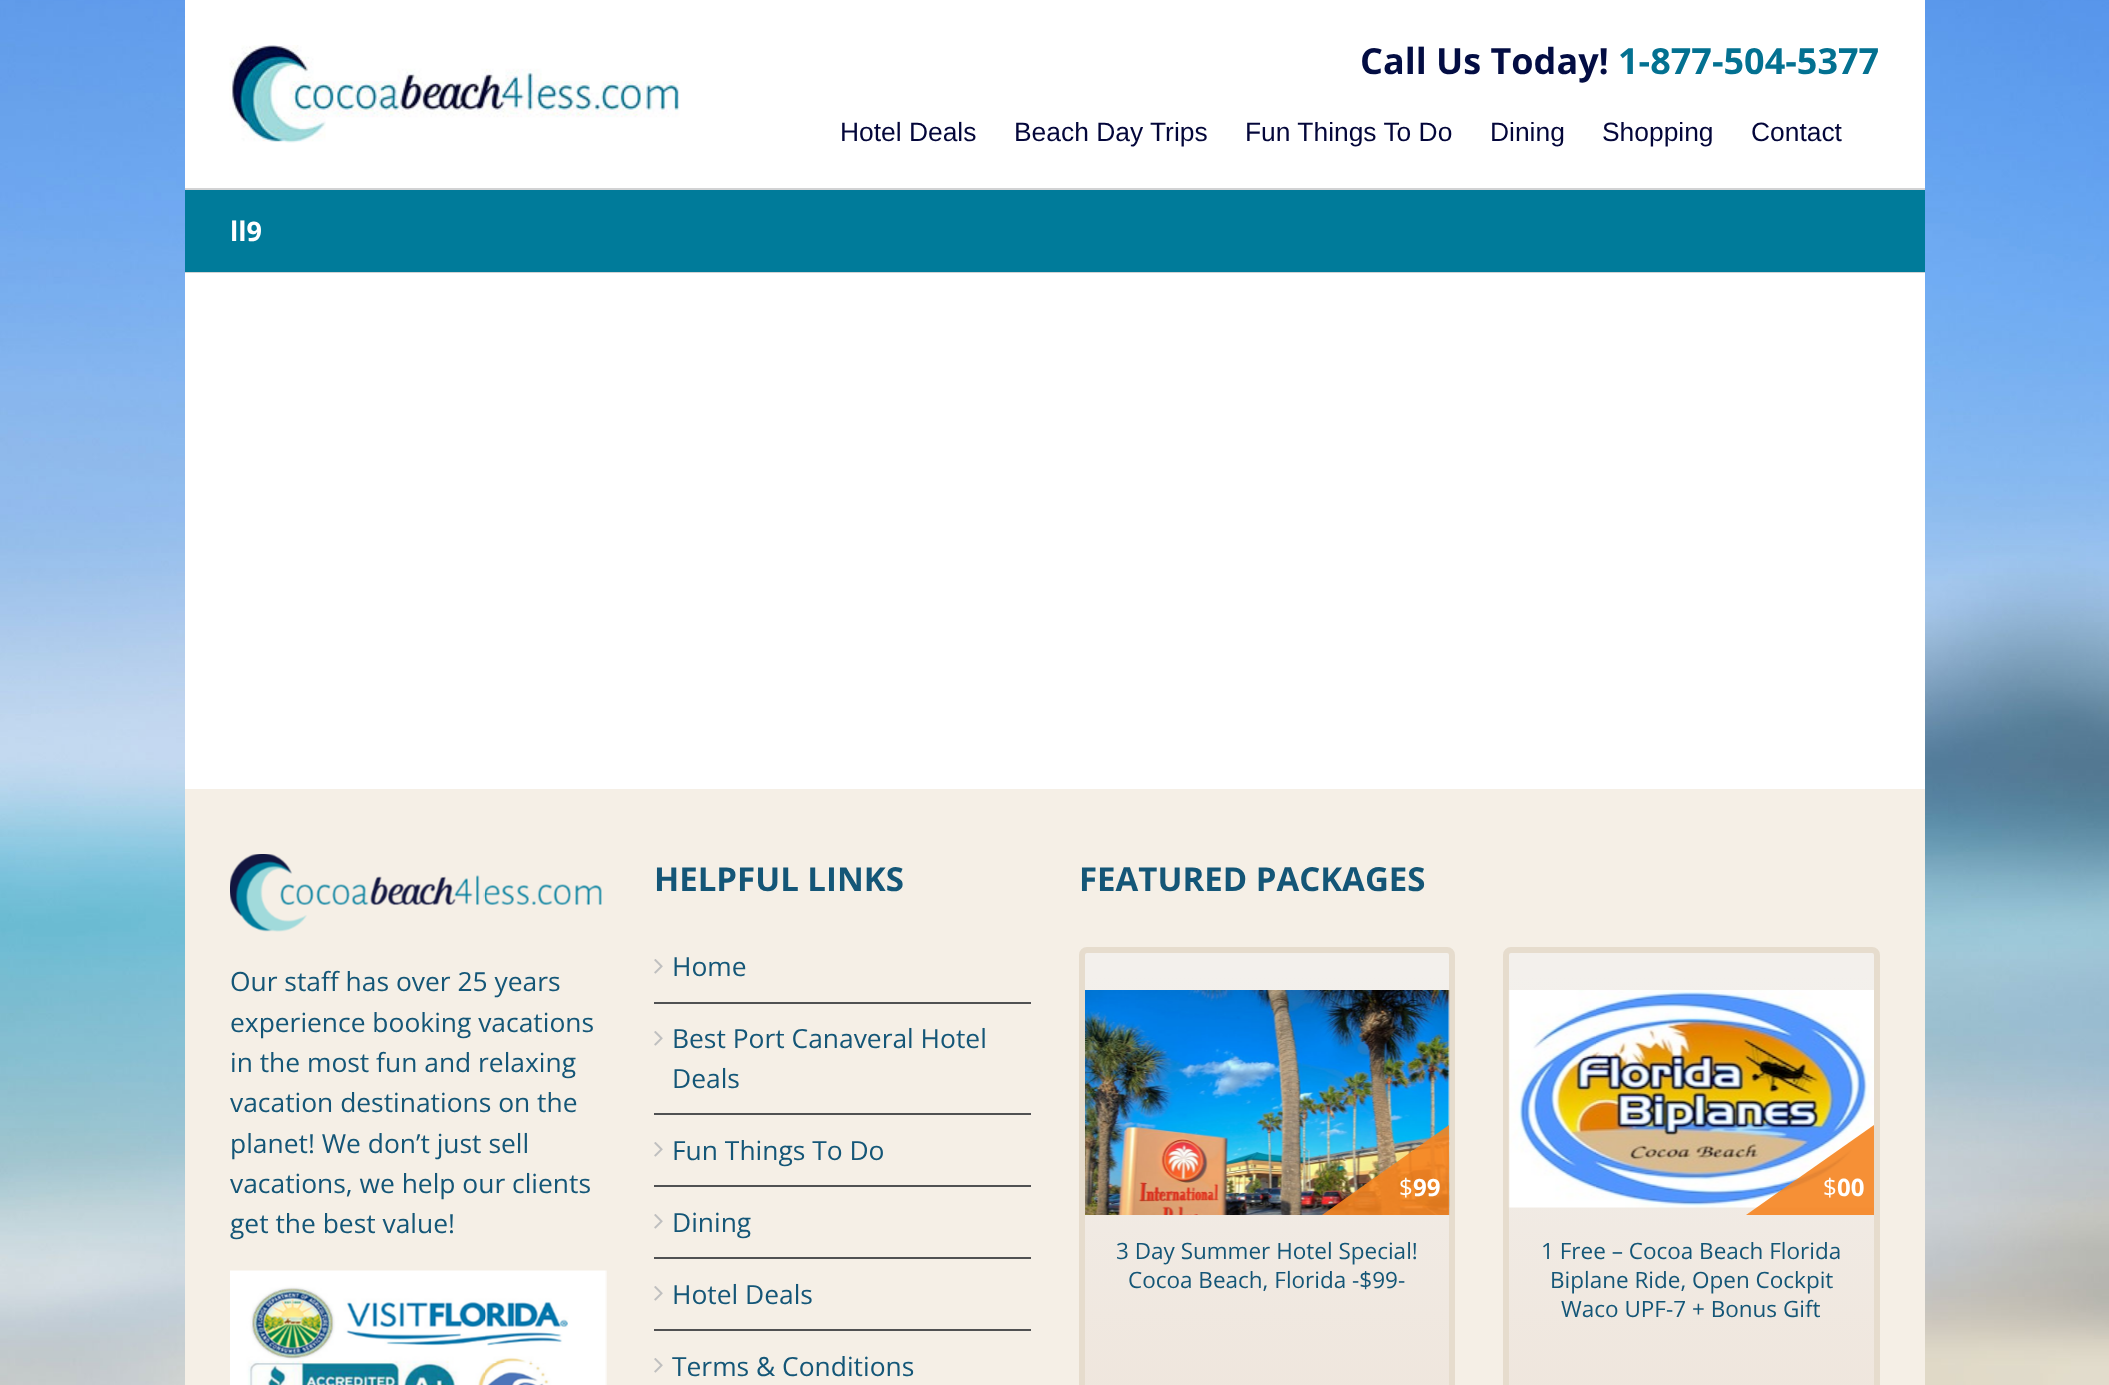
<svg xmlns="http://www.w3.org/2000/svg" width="2109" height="1385">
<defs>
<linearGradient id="g1" gradientUnits="userSpaceOnUse" x1="1085" y1="953" x2="1085" y2="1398"><stop offset="0.05" stop-color="#f3f0ec"/><stop offset="1" stop-color="#efe6dd"/></linearGradient>
<linearGradient id="g2" gradientUnits="userSpaceOnUse" x1="1509" y1="953" x2="1509" y2="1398"><stop offset="0.05" stop-color="#f3f0ec"/><stop offset="1" stop-color="#efe6dd"/></linearGradient>
</defs>
<rect width="100%" height="100%" fill="#fff"/>
<image x="0" y="0" width="2109" height="1385" href="media/1.png"/>
<rect x="185" width="1740" height="188" fill="#fff"/>
<image x="229" y="45" width="451" height="98" href="media/2.png"/>
<text x="1360" y="74" style="font-family:Open Sans;font-size:36px;font-weight:bold;fill:#030d43">Call Us Today!</text>
<text x="1618" y="74" style="font-family:Open Sans;font-size:36px;font-weight:bold;fill:#037191">1-877-504-5377</text>
<text x="840" y="141" style="font-family:Liberation Sans;font-size:26.4px;fill:#03063a">Hotel Deals</text>
<text x="1014" y="141" style="font-family:Liberation Sans;font-size:26.4px;fill:#03063a">Beach Day Trips</text>
<text x="1245" y="141" style="font-family:Liberation Sans;font-size:26.4px;fill:#03063a">Fun Things To Do</text>
<text x="1490" y="141" style="font-family:Liberation Sans;font-size:26.4px;fill:#03063a">Dining</text>
<text x="1602" y="141" style="font-family:Liberation Sans;font-size:26.4px;fill:#03063a">Shopping</text>
<text x="1751" y="141" style="font-family:Liberation Sans;font-size:26.4px;fill:#03063a">Contact</text>
<rect x="185" y="190" width="1740" height="82" fill="#007b9a"/>
<rect x="185" y="188" width="1740" height="2" fill="#d2d3d4"/>
<rect x="185" y="272" width="1740" height="1" fill="#d2d3d4"/>
<text x="230" y="241" style="font-family:Open Sans;font-size:27px;font-weight:bold;fill:#fff">ll9</text>
<rect x="185" y="273" width="1740" height="516" fill="#fff"/>
<rect x="185" y="789" width="1740" height="596" fill="#f5efe6"/>
<image x="230" y="854" width="372" height="78" href="media/3.png"/>
<text x="230" y="991" style="font-family:Open Sans;font-size:26.4px;fill:#145677">Our staff has over 25 years</text>
<text x="230" y="1032" style="font-family:Open Sans;font-size:26.4px;fill:#145677">experience booking vacations</text>
<text x="230" y="1072" style="font-family:Open Sans;font-size:26.4px;fill:#145677">in the most fun and relaxing</text>
<text x="230" y="1112" style="font-family:Open Sans;font-size:26.4px;fill:#145677">vacation destinations on the</text>
<text x="230" y="1153" style="font-family:Open Sans;font-size:26.4px;fill:#145677">planet! We don’t just sell</text>
<text x="230" y="1193" style="font-family:Open Sans;font-size:26.4px;fill:#145677">vacations, we help our clients</text>
<text x="230" y="1233" style="font-family:Open Sans;font-size:26.4px;fill:#145677">get the best value!</text>
<image x="230" y="1270" width="377" height="115" href="media/4.png"/>
<text x="654" y="891" style="font-family:Open Sans;font-size:33px;font-weight:bold;fill:#145677">HELPFUL LINKS</text>
<rect x="654" y="1002" width="377" height="2" fill="#505152"/>
<image x="654" y="959" width="9" height="15" href="media/5.png"/>
<text x="672" y="976" style="font-family:Open Sans;font-size:26.4px;fill:#145677">Home</text>
<rect x="654" y="1113" width="377" height="2" fill="#505152"/>
<image x="654" y="1031" width="9" height="15" href="media/5.png"/>
<text x="672" y="1048" style="font-family:Open Sans;font-size:26.4px;fill:#145677">Best Port Canaveral Hotel</text>
<text x="672" y="1088" style="font-family:Open Sans;font-size:26.4px;fill:#145677">Deals</text>
<rect x="654" y="1185" width="377" height="2" fill="#505152"/>
<image x="654" y="1142" width="9" height="15" href="media/5.png"/>
<text x="672" y="1160" style="font-family:Open Sans;font-size:26.4px;fill:#145677">Fun Things To Do</text>
<rect x="654" y="1257" width="377" height="2" fill="#505152"/>
<image x="654" y="1214" width="9" height="15" href="media/5.png"/>
<text x="672" y="1232" style="font-family:Open Sans;font-size:26.4px;fill:#145677">Dining</text>
<rect x="654" y="1329" width="377" height="2" fill="#505152"/>
<image x="654" y="1286" width="9" height="15" href="media/5.png"/>
<text x="672" y="1304" style="font-family:Open Sans;font-size:26.4px;fill:#145677">Hotel Deals</text>
<image x="654" y="1358" width="9" height="15" href="media/5.png"/>
<text x="672" y="1376" style="font-family:Open Sans;font-size:26.4px;fill:#145677">Terms &amp; Conditions</text>
<text x="1079" y="891" style="font-family:Open Sans;font-size:33px;font-weight:bold;fill:#145677">FEATURED PACKAGES</text>
<rect x="1079" y="953" width="376" height="432" fill="url(#g1)"/>
<rect x="1082" y="950" width="370" height="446" rx="5" fill="none" stroke="#e6dccd" stroke-width="6"/>
<image x="1085" y="990" width="365" height="225" href="media/6.png"/>
<path d="M1449 1215h-127l127-90z" fill="#f58420e6"/>
<text x="1399" y="1196" style="font-family:Open Sans;font-size:24px;fill:#fff">$</text>
<text x="1413" y="1196" style="font-family:Open Sans;font-size:24px;font-weight:bold;fill:#fff">99</text>
<text x="1116" y="1259" style="font-family:Open Sans;font-size:22.5px;fill:#145677">3 Day Summer Hotel Special!</text>
<text x="1128" y="1288" style="font-family:Open Sans;font-size:22.5px;fill:#145677">Cocoa Beach, Florida -$99-</text>
<rect x="1503" y="953" width="377" height="432" fill="url(#g2)"/>
<rect x="1506" y="950" width="371" height="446" rx="5" fill="none" stroke="#e6dccd" stroke-width="6"/>
<image x="1508" y="990" width="366" height="218" href="media/7.png"/>
<path d="M1874 1215h-128l128-90z" fill="#f58420e6"/>
<text x="1823" y="1196" style="font-family:Open Sans;font-size:24px;fill:#fff">$</text>
<text x="1837" y="1196" style="font-family:Open Sans;font-size:24px;font-weight:bold;fill:#fff">00</text>
<text x="1541" y="1259" style="font-family:Open Sans;font-size:22.5px;fill:#145677">1 Free – Cocoa Beach Florida</text>
<text x="1550" y="1288" style="font-family:Open Sans;font-size:22.5px;fill:#145677">Biplane Ride, Open Cockpit</text>
<text x="1561" y="1317" style="font-family:Open Sans;font-size:22.5px;fill:#145677">Waco UPF-7 + Bonus Gift</text>
</svg>
